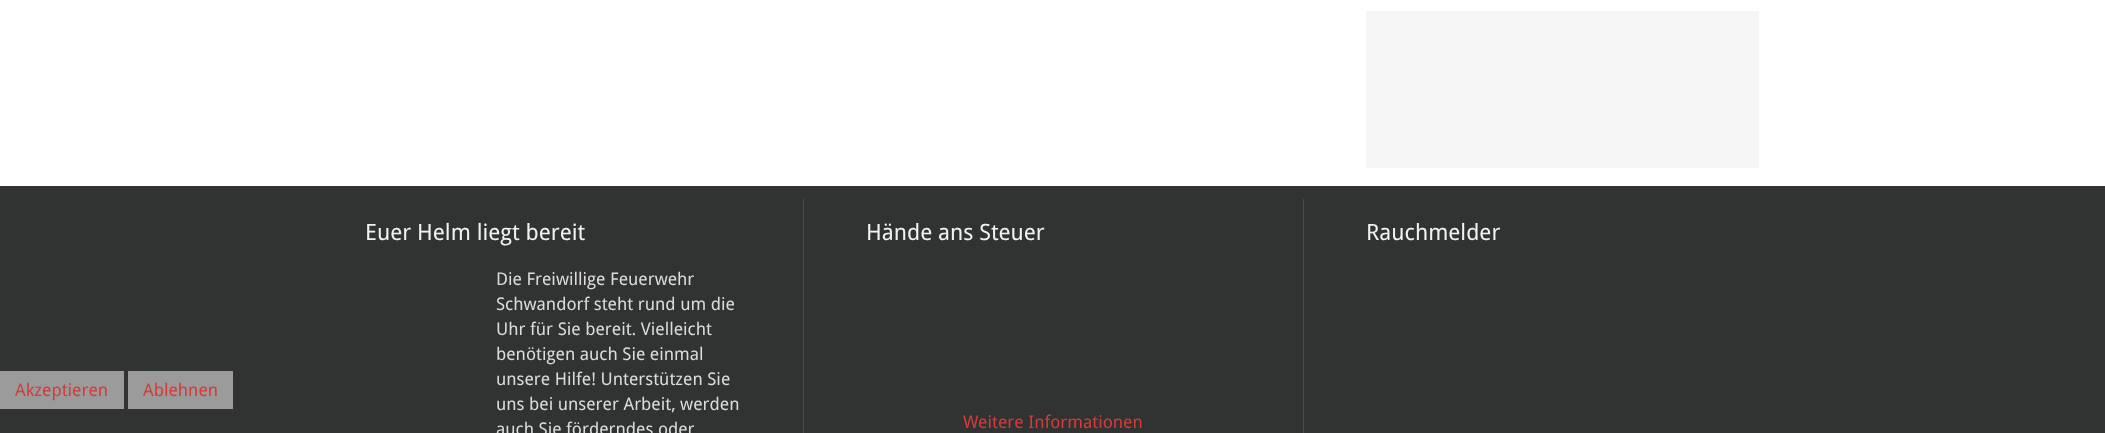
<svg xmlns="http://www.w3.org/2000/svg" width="2105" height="433">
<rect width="100%" height="100%" fill="#313232"/>
<rect width="2105" height="186" fill="#fff"/>
<rect x="1366" y="11" width="393" height="157" fill="#f5f5f5"/>
<text x="365" y="240" style="font-family:Droid Sans;font-size:22.5px;fill:#eef2f3">Euer Helm liegt bereit</text>
<text x="496" y="285" style="font-family:Droid Sans;font-size:17.5px;fill:#dbdbdb">Die Freiwillige Feuerwehr</text>
<text x="496" y="310" style="font-family:Droid Sans;font-size:17.5px;fill:#dbdbdb">Schwandorf steht rund um die</text>
<text x="496" y="335" style="font-family:Droid Sans;font-size:17.5px;fill:#dbdbdb">Uhr für Sie bereit. Vielleicht</text>
<text x="496" y="360" style="font-family:Droid Sans;font-size:17.5px;fill:#dbdbdb">benötigen auch Sie einmal</text>
<text x="496" y="385" style="font-family:Droid Sans;font-size:17.5px;fill:#dbdbdb">unsere Hilfe! Unterstützen Sie</text>
<text x="496" y="410" style="font-family:Droid Sans;font-size:17.5px;fill:#dbdbdb">uns bei unserer Arbeit, werden</text>
<text x="496" y="435" style="font-family:Droid Sans;font-size:17.5px;fill:#dbdbdb">auch Sie förderndes oder</text>
<rect x="803" y="199" width="1" height="234" fill="#4a4a4a"/>
<text x="866" y="240" style="font-family:Droid Sans;font-size:22.5px;fill:#eef2f3">Hände ans Steuer</text>
<rect x="1303" y="199" width="1" height="234" fill="#4a4a4a"/>
<text x="1366" y="240" style="font-family:Droid Sans;font-size:22.5px;fill:#eef2f3">Rauchmelder</text>
<rect y="371" width="124" height="38" fill="#9b9b9b"/>
<text x="15" y="396" style="font-family:Droid Sans;font-size:17.5px;fill:#d63b37">Akzeptieren</text>
<rect x="128" y="371" width="105" height="38" fill="#9b9b9b"/>
<text x="143" y="396" style="font-family:Droid Sans;font-size:17.5px;fill:#d63b37">Ablehnen</text>
<text x="963" y="428" style="font-family:Droid Sans;font-size:17.5px;fill:#d63b37">Weitere Informationen</text>
</svg>
